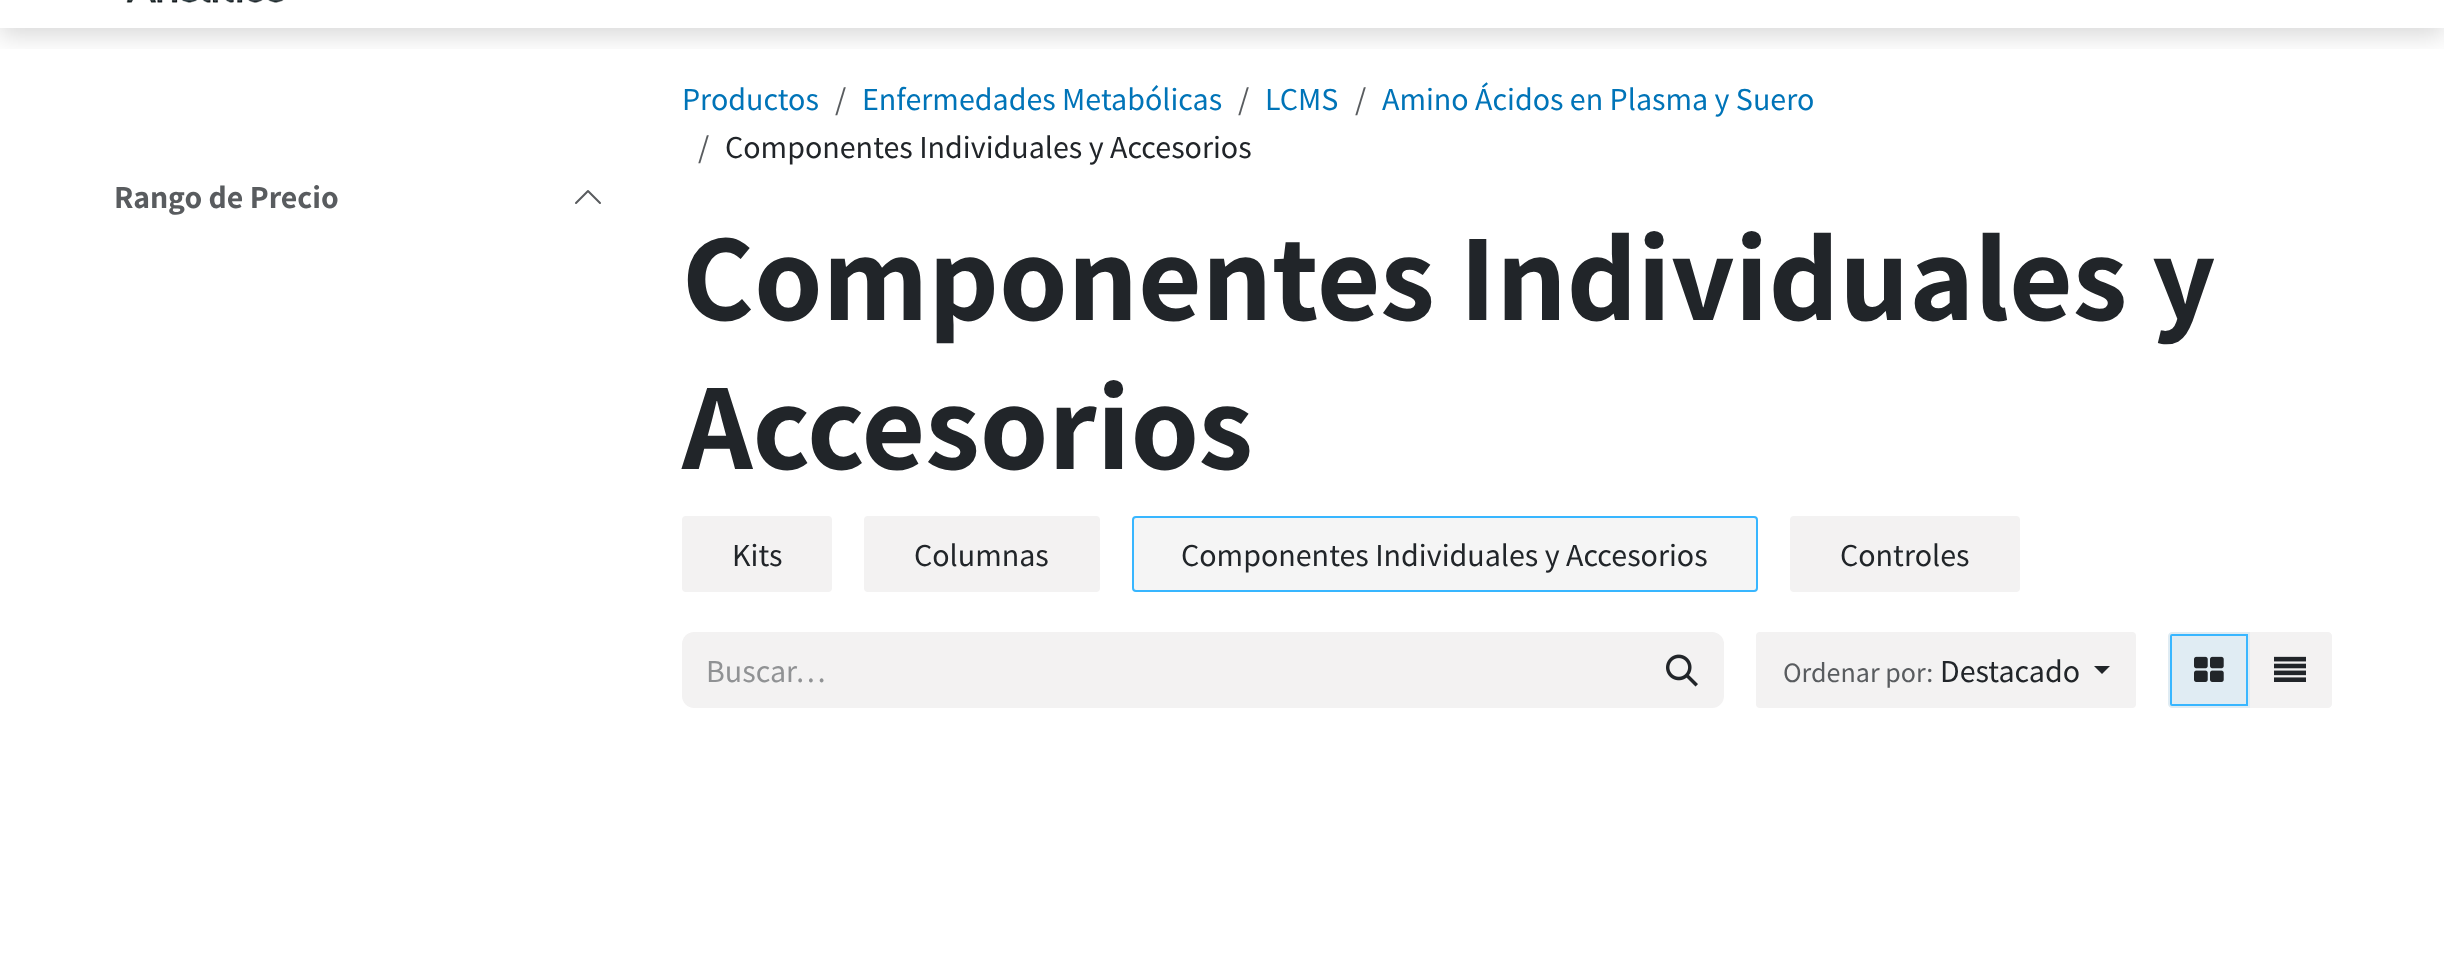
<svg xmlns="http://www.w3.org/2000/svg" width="2444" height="975">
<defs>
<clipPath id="clip1"><rect x="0" y="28" width="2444" height="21"/></clipPath>
</defs>
<rect width="100%" height="100%" fill="#fff"/>
<g clip-path="url(#clip1)">
<rect y="-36" width="2444" height="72" fill="#00000026" filter="blur(12px)"/>
</g>
<image x="126" y="0" width="158" height="3" href="media/1.png"/>
<text x="114" y="208" style="font-family:Assistant;font-size:32px;font-weight:bold;fill:#595c5f">Rango de Precio</text>
<path d="M600 203l-12-12l-12 12" fill="none" stroke="#595c5f" stroke-width="2" stroke-linecap="round" stroke-linejoin="round"/>
<text x="682" y="110" style="font-family:Source Sans Pro;font-size:32px;fill:#0074b8">Productos</text>
<text x="835" y="110" style="font-family:Source Sans Pro;font-size:32px;fill:#595c5f">/</text>
<text x="862" y="110" style="font-family:Source Sans Pro;font-size:32px;fill:#0074b8">Enfermedades Metabólicas</text>
<text x="1238" y="110" style="font-family:Source Sans Pro;font-size:32px;fill:#595c5f">/</text>
<text x="1265" y="110" style="font-family:Source Sans Pro;font-size:32px;fill:#0074b8">LCMS</text>
<text x="1355" y="110" style="font-family:Source Sans Pro;font-size:32px;fill:#595c5f">/</text>
<text x="1382" y="110" style="font-family:Source Sans Pro;font-size:32px;fill:#0074b8">Amino Ácidos en Plasma y Suero</text>
<text x="698" y="158" style="font-family:Source Sans Pro;font-size:32px;fill:#595c5f">/</text>
<text x="725" y="158" style="font-family:Source Sans Pro;font-size:32px;fill:#212529">Componentes Individuales y Accesorios</text>
<text x="682" y="320" style="font-family:Assistant;font-size:124px;font-weight:bold;fill:#212529">Componentes Individuales y</text>
<text x="682" y="469" style="font-family:Assistant;font-size:124px;font-weight:bold;fill:#212529">Accesorios</text>
<rect x="683" y="517" width="148" height="74" rx="3" fill="#f3f2f2" stroke="#f3f2f2" stroke-width="2"/>
<text x="732" y="566" style="font-family:Source Sans Pro;font-size:32px;fill:#212529">Kits</text>
<rect x="865" y="517" width="234" height="74" rx="3" fill="#f3f2f2" stroke="#f3f2f2" stroke-width="2"/>
<text x="914" y="566" style="font-family:Source Sans Pro;font-size:32px;fill:#212529">Columnas</text>
<rect x="1133" y="517" width="624" height="74" rx="3" fill="#f5f5f5" stroke="#38b6ff" stroke-width="2"/>
<text x="1181" y="566" style="font-family:Source Sans Pro;font-size:32px;fill:#212529">Componentes Individuales y Accesorios</text>
<rect x="1791" y="517" width="228" height="74" rx="3" fill="#f3f2f2" stroke="#f3f2f2" stroke-width="2"/>
<text x="1840" y="566" style="font-family:Source Sans Pro;font-size:32px;fill:#212529">Controles</text>
<path d="M694 632h948v76h-948c-6.5 0-12-5.5-12-12v-52c0-6.5 5.5-12 12-12z" fill="#f3f2f2"/>
<text x="706" y="682" style="font-family:Source Sans Pro;font-size:32px;fill:#909294">Buscar…</text>
<path d="M1641 633h71c6 0 11 5 11 11v52c0 6-5 11-11 11h-71z" fill="#f3f2f2" stroke="#f3f2f2" stroke-width="2"/>
<image x="1666" y="654" width="32" height="33" href="media/2.png"/>
<rect x="1757" y="633" width="378" height="74" rx="3" fill="#f3f2f2" stroke="#f3f2f2" stroke-width="2"/>
<text x="1783" y="682" style="font-family:Source Sans Pro;font-size:28px;fill:#595c5f">Ordenar por:</text>
<text x="1940" y="682" style="font-family:Source Sans Pro;font-size:32px;fill:#212529">Destacado</text>
<path d="M2094 666h16l-8 8z" fill="#212529"/>
<path d="M2249 633h79c1.5 0 3 1.5 3 3v68c0 1.5-1.5 3-3 3h-79z" fill="#f3f2f2" stroke="#f3f2f2" stroke-width="2"/>
<path d="M2172 632h78v76h-78c-2 0-4-2-4-4v-68c0-2 2-4 4-4z" fill="#e0ecf3"/>
<path d="M2172 635h75v70h-75c-.5 0-1-.5-1-1v-68c0-.5 .5-1 1-1z" fill="none" stroke="#38b6ff" stroke-width="2"/>
<image x="2194" y="656" width="30" height="26" href="media/3.png"/>
<image x="2274" y="656" width="32" height="26" href="media/4.png"/>
</svg>
